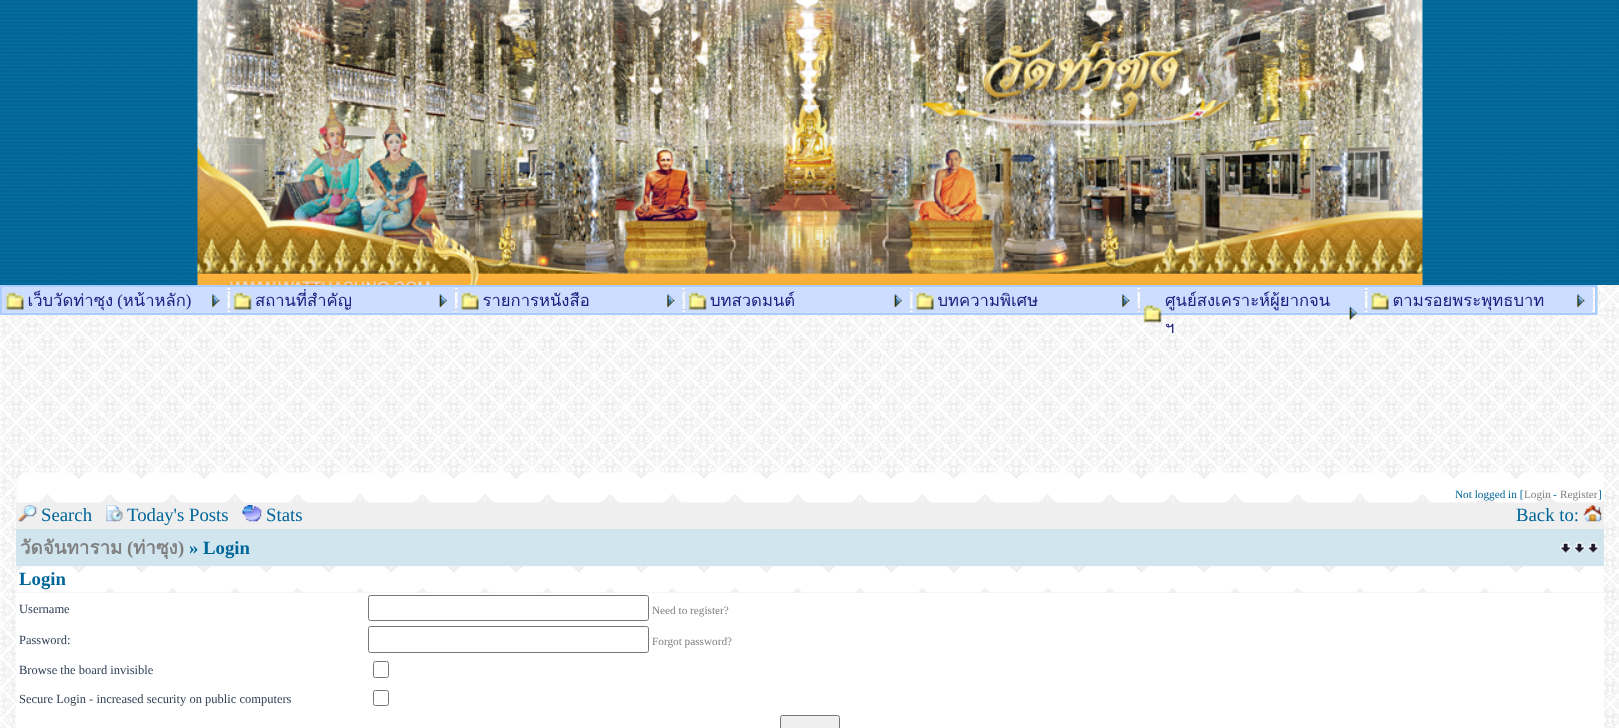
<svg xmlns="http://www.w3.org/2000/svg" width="1619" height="728">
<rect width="100%" height="100%" fill="#fff"/>
<image x="0" y="285" width="1619" height="443" href="media/1.png"/>
<image x="0" y="0" width="1619" height="285" href="media/2.png"/>
<image x="0" y="285" width="1598" height="48" href="media/3.png"/>
<rect x="16" y="473" width="1588" height="56" fill="#efefef"/>
<image x="16" y="472" width="1588" height="31" href="media/4.png"/>
<text x="1455" y="498" style="font-family:Liberation Serif;font-size:11.25px;fill:#069">Not logged in [</text>
<text x="1524" y="498" style="font-family:Liberation Serif;font-size:11.25px;fill:#808080">Login</text>
<text x="1553" y="498" style="font-family:Liberation Serif;font-size:11.25px;fill:#069">-</text>
<text x="1560" y="498" style="font-family:Liberation Serif;font-size:11.25px;fill:#808080">Register</text>
<text x="1598" y="498" style="font-family:Liberation Serif;font-size:11.25px;fill:#069">]</text>
<image x="18" y="505" width="19" height="17" href="media/5.png"/>
<text x="41" y="521" style="font-family:Liberation Serif;font-size:18.75px;fill:#069">Search</text>
<image x="106" y="505" width="17" height="17" href="media/6.png"/>
<text x="127" y="521" style="font-family:Liberation Serif;font-size:18.75px;fill:#069">Today's Posts</text>
<image x="242" y="505" width="20" height="17" href="media/7.png"/>
<text x="266" y="521" style="font-family:Liberation Serif;font-size:18.75px;fill:#069">Stats</text>
<text x="1516" y="521" style="font-family:Liberation Serif;font-size:18.75px;fill:#069">Back to:</text>
<image x="1583" y="505" width="19" height="17" href="media/8.png"/>
<rect x="16" y="529" width="1588" height="37" fill="#d1e5ef"/>
<text x="20" y="554" style="font-family:Loma;font-size:18.75px;font-weight:bold;fill:#808080">วัดจันทาราม</text>
<text x="127" y="554" style="font-family:Liberation Serif;font-size:18.75px;font-weight:bold;fill:#808080">(</text>
<text x="133" y="554" style="font-family:Loma;font-size:18.75px;font-weight:bold;fill:#808080">ท่าซุง</text>
<text x="178" y="554" style="font-family:Liberation Serif;font-size:18.75px;font-weight:bold;fill:#808080">)</text>
<text x="189" y="554" style="font-family:Liberation Serif;font-size:18.75px;font-weight:bold;fill:#069">» Login</text>
<image x="1560" y="542" width="39" height="12" href="media/9.png"/>
<rect x="16" y="566" width="1588" height="27" fill="#efefef"/>
<image x="16" y="566" width="1588" height="27" href="media/10.png"/>
<text x="19" y="585" style="font-family:Liberation Serif;font-size:18.75px;font-weight:bold;fill:#069">Login</text>
<rect x="16" y="593" width="1588" height="31" fill="#fff"/>
<text x="19" y="613" style="font-family:Liberation Serif;font-size:12.5px;fill:#2e3e55">Username</text>
<rect x="368.5" y="595.5" width="280" height="25" rx="2" fill="none" stroke="#767676"/>
<text x="652" y="614" style="font-family:Liberation Serif;font-size:11.25px;fill:#808080">Need to register?</text>
<rect x="16" y="624" width="1588" height="31" fill="#fff"/>
<text x="19" y="644" style="font-family:Liberation Serif;font-size:12.5px;fill:#2e3e55">Password:</text>
<rect x="368.5" y="626.5" width="280" height="26" rx="2" fill="none" stroke="#767676"/>
<text x="652" y="645" style="font-family:Liberation Serif;font-size:11.25px;fill:#808080">Forgot password?</text>
<rect x="16" y="655" width="1588" height="29" fill="#fff"/>
<text x="19" y="674" style="font-family:Liberation Serif;font-size:12.5px;fill:#2e3e55">Browse the board invisible</text>
<rect x="373.5" y="661.5" width="15" height="16" rx="2" fill="none" stroke="#767676"/>
<rect x="16" y="684" width="1588" height="44" fill="#fff"/>
<text x="19" y="703" style="font-family:Liberation Serif;font-size:12.5px;fill:#2e3e55">Secure Login - increased security on public computers</text>
<rect x="373.5" y="690.5" width="15" height="15" rx="2" fill="none" stroke="#767676"/>
<rect x="780.5" y="715.5" width="59" height="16" rx="2" fill="#efefef" stroke="#767676"/>
</svg>
